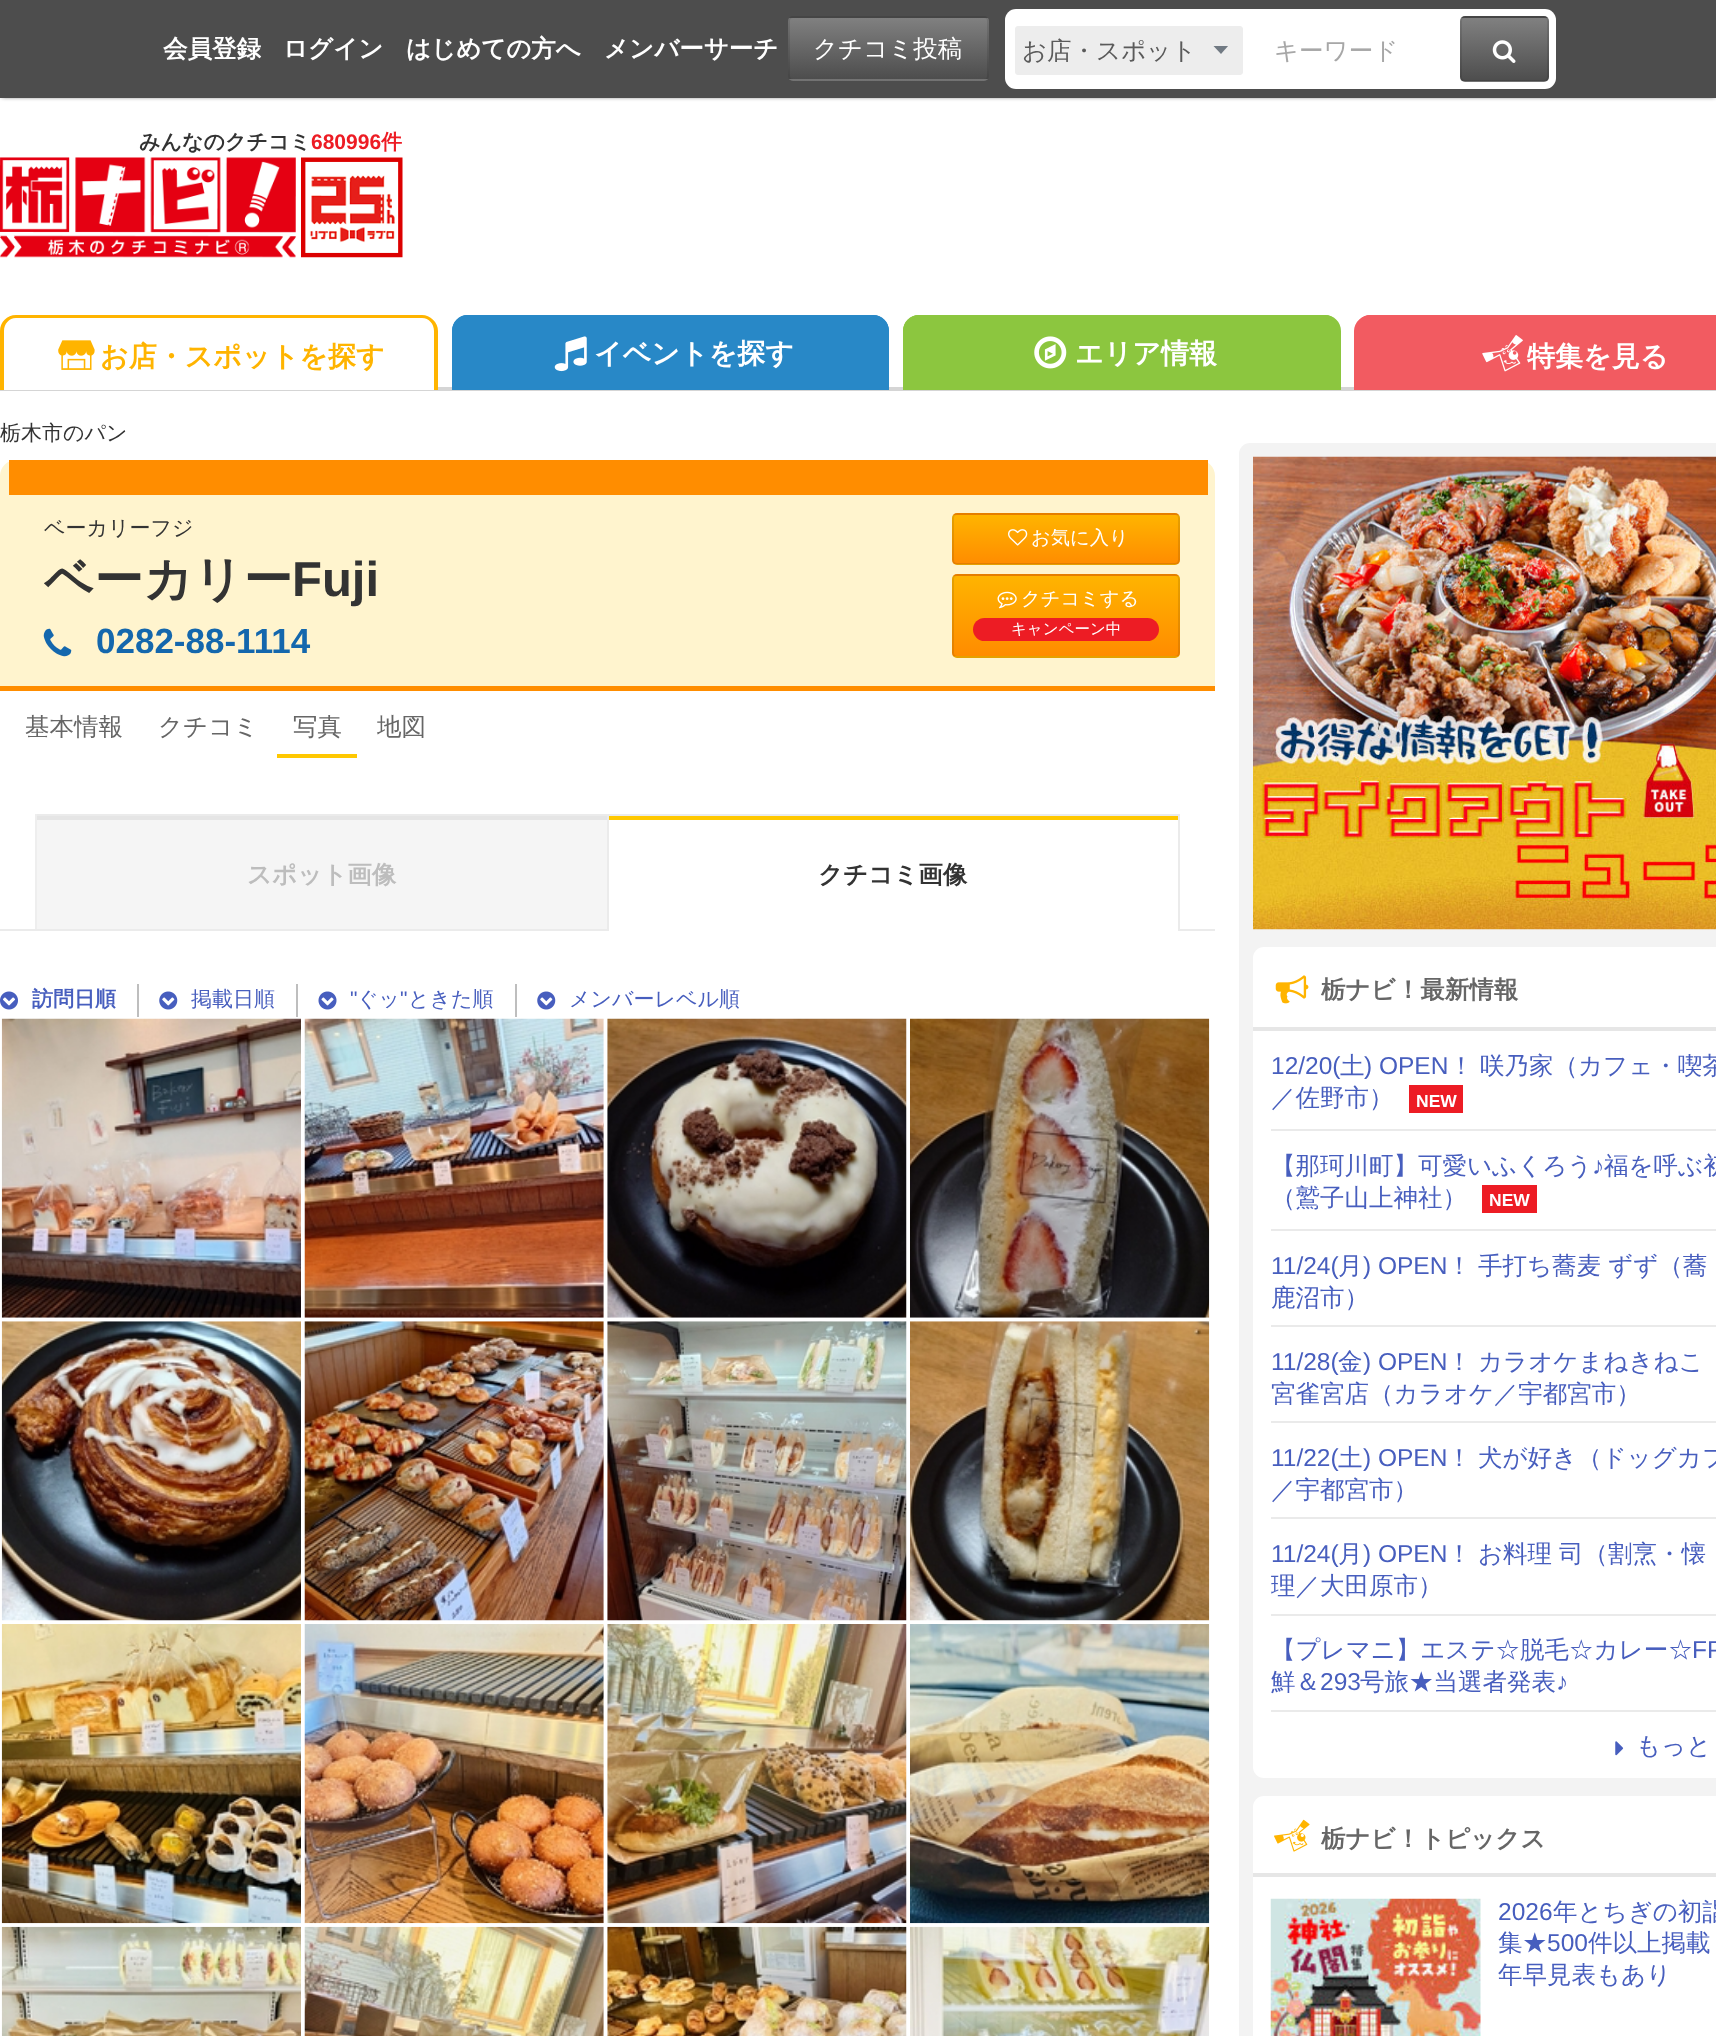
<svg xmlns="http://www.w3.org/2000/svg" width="1716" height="2036">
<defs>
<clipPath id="clip1"><rect x="788" y="16" width="201" height="65" rx="5"/></clipPath>
<linearGradient id="g1" gradientUnits="userSpaceOnUse" x1="888" y1="17" x2="888" y2="79"><stop offset="0" stop-color="#818181"/><stop offset="1" stop-color="#4d4d4d"/></linearGradient>
<linearGradient id="g2" gradientUnits="userSpaceOnUse" x1="888" y1="79" x2="888" y2="140"><stop offset="0" stop-color="#818181"/><stop offset="1" stop-color="#4d4d4d"/></linearGradient>
<clipPath id="clip2"><rect x="1213" y="46" width="16" height="8"/></clipPath>
<clipPath id="clip3"><rect x="1460" y="16" width="89" height="66" rx="5"/></clipPath>
<linearGradient id="g3" gradientUnits="userSpaceOnUse" x1="1504" y1="-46" x2="1504" y2="18"><stop offset="0" stop-color="#818181"/><stop offset="1" stop-color="#4d4d4d"/></linearGradient>
<linearGradient id="g4" gradientUnits="userSpaceOnUse" x1="1504" y1="17" x2="1504" y2="81"><stop offset="0" stop-color="#818181"/><stop offset="1" stop-color="#4d4d4d"/></linearGradient>
<linearGradient id="g5" gradientUnits="userSpaceOnUse" x1="1504" y1="81" x2="1504" y2="144"><stop offset="0" stop-color="#818181"/><stop offset="1" stop-color="#4d4d4d"/></linearGradient>
<clipPath id="clip4"><rect x="952" y="513" width="228" height="52" rx="5"/></clipPath>
<linearGradient id="g6" gradientUnits="userSpaceOnUse" x1="1066" y1="466" x2="1066" y2="515"><stop offset="0" stop-color="#ffb400"/><stop offset="1" stop-color="#ff8c00"/></linearGradient>
<linearGradient id="g7" gradientUnits="userSpaceOnUse" x1="1066" y1="515" x2="1066" y2="564"><stop offset="0" stop-color="#ffb400"/><stop offset="1" stop-color="#ff8c00"/></linearGradient>
<linearGradient id="g8" gradientUnits="userSpaceOnUse" x1="1066" y1="564" x2="1066" y2="613"><stop offset="0" stop-color="#ffb400"/><stop offset="1" stop-color="#ff8c00"/></linearGradient>
<clipPath id="clip5"><rect x="952" y="574" width="228" height="84" rx="5"/></clipPath>
<linearGradient id="g9" gradientUnits="userSpaceOnUse" x1="1066" y1="495" x2="1066" y2="576"><stop offset="0" stop-color="#ffb400"/><stop offset="1" stop-color="#ff8c00"/></linearGradient>
<linearGradient id="g10" gradientUnits="userSpaceOnUse" x1="1066" y1="576" x2="1066" y2="656"><stop offset="0" stop-color="#ffb400"/><stop offset="1" stop-color="#ff8c00"/></linearGradient>
<linearGradient id="g11" gradientUnits="userSpaceOnUse" x1="1066" y1="656" x2="1066" y2="737"><stop offset="0" stop-color="#ffb400"/><stop offset="1" stop-color="#ff8c00"/></linearGradient>
</defs>
<rect width="100%" height="100%" fill="#fff"/>
<rect x="2" y="2" width="1713" height="94" fill="#000" filter="blur(2.5px)"/>
<rect width="1716" height="98" fill="#4d4d4d"/>
<text x="163" y="57" style="font-family:WenQuanYi Zen Hei;font-size:24.5px;font-weight:bold;fill:#fff">会員登録</text>
<text x="283" y="57" style="font-family:WenQuanYi Zen Hei;font-size:24.5px;font-weight:bold;fill:#fff">ログイン</text>
<text x="406" y="57" style="font-family:WenQuanYi Zen Hei;font-size:24.5px;font-weight:bold;fill:#fff">はじめての方へ</text>
<text x="604" y="57" style="font-family:WenQuanYi Zen Hei;font-size:24.5px;font-weight:bold;fill:#fff">メンバーサーチ</text>
<g clip-path="url(#clip1)">
<rect x="788" y="18" width="201" height="61" fill="url(#g1)"/>
<rect x="788" y="79" width="201" height="2" fill="url(#g2)"/>
</g>
<rect x="789" y="17" width="199" height="63" rx="4" fill="none" stroke="#0000001a" stroke-width="2"/>
<text x="813" y="57" style="font-family:WenQuanYi Zen Hei;font-size:24.5px;font-weight:500;fill:#fff">クチコミ投稿</text>
<rect x="1005" y="9" width="551" height="80" rx="11" fill="#fff"/>
<rect x="1015" y="26" width="228" height="49" rx="4" fill="#ededed"/>
<g clip-path="url(#clip2)">
<path d="M1228.5 45.5l-7.5 8.5l-8-8.5z" fill="#717a83"/>
</g>
<rect x="1016" y="27" width="226" height="47" rx="3" fill="none" stroke="#ededed" stroke-width="2"/>
<text x="1022" y="59" style="font-family:WenQuanYi Zen Hei;font-size:24.5px;font-weight:500;fill:#5a5a5a">お店・スポット</text>
<text x="1274" y="59" style="font-family:WenQuanYi Zen Hei;font-size:24.5px;font-weight:500;fill:#a7a7a7">キーワード</text>
<g clip-path="url(#clip3)">
<rect x="1460" y="16" width="89" height="2" fill="url(#g3)"/>
<rect x="1460" y="18" width="89" height="63" fill="url(#g4)"/>
<rect x="1460" y="81" width="89" height="1" fill="url(#g5)"/>
</g>
<rect x="1461" y="17" width="87" height="64" rx="4" fill="none" stroke="#0000001a" stroke-width="2"/>
<image x="1492" y="40" width="24" height="23" href="media/1.png"/>
<text x="139" y="149" style="font-family:WenQuanYi Zen Hei;font-size:21px;font-weight:bold;fill:#333">みんなのクチコミ</text>
<text x="311" y="149" style="font-family:Liberation Sans;font-size:21px;font-weight:bold;fill:#ed1c24">680996</text>
<text x="381" y="149" style="font-family:WenQuanYi Zen Hei;font-size:21px;font-weight:bold;fill:#ed1c24">件</text>
<image x="0" y="157" width="403" height="101" href="media/2.png"/>
<rect y="387" width="1716" height="4" fill="#d5d5d5"/>
<path d="M16 315h406c9 0 16 7 16 16v59h-438v-59c0-9 7-16 16-16z" fill="#fff"/>
<path d="M16 315h406c8 0 16 7 16 16v59h-438v-59c0-9 7-16 16-16zm0 3h406c7 0 12 6 12 13v59h-430v-59c0-7 5-13 12-13z" fill="#ffb400" fill-rule="evenodd"/>
<image x="58" y="340" width="37" height="30" href="media/3.png"/>
<text x="100" y="366" style="font-family:WenQuanYi Zen Hei;font-size:28px;font-weight:bold;fill:#ffb400">お店・スポットを探す</text>
<path d="M468 315h405c9 0 16 7 16 16v59h-437v-59c0-9 7-16 16-16z" fill="#2888c7"/>
<path d="M467 315h406c9 0 16 7 16 16v59h-437v-59c0-9 7-16 15-16zm0 3h406c7 0 13 6 13 13v59h-431v-59c0-7 5-13 12-13z" fill="#2888c7" fill-rule="evenodd"/>
<image x="554" y="336" width="33" height="36" href="media/4.png"/>
<text x="594" y="363" style="font-family:WenQuanYi Zen Hei;font-size:28px;font-weight:bold;fill:#fff">イベントを探す</text>
<path d="M919 315h406c9 0 16 7 16 16v59h-438v-59c0-9 7-16 16-16z" fill="#8cc63f"/>
<path d="M919 315h406c8 0 15 7 15 16v59h-437v-59c0-9 7-16 16-16zm0 3h406c7 0 12 6 12 13v59h-431v-59c0-7 6-13 13-13z" fill="#8cc63f" fill-rule="evenodd"/>
<image x="1034" y="336" width="33" height="33" href="media/5.png"/>
<text x="1075" y="363" style="font-family:WenQuanYi Zen Hei;font-size:28px;font-weight:bold;fill:#fff">エリア情報</text>
<path d="M1371 315h345c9 0 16 7 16 16v59h-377v-59c0-9 7-16 16-16z" fill="#f25b61"/>
<path d="M1370 315h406c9 0 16 7 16 16v59h-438v-59c0-9 8-16 16-16zm0 3h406c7 0 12 6 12 13v59h-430v-59c0-7 5-13 12-13z" fill="#f25b61" fill-rule="evenodd"/>
<image x="1482" y="335" width="41" height="37" href="media/6.png"/>
<text x="1527" y="366" style="font-family:WenQuanYi Zen Hei;font-size:28px;font-weight:bold;fill:#fff">特集を見る</text>
<text x="0" y="440" style="font-family:WenQuanYi Zen Hei;font-size:21px;font-weight:500;fill:#333">栃木市のパン</text>
<path d="M16 460h1183c9 0 16 7 16 16v215h-1215v-215c0-9 7-16 16-16z" fill="#fff4ce"/>
<rect x="9" y="460" width="1199" height="35" fill="#ff8d00"/>
<rect y="686" width="1215" height="5" fill="#ff8d00"/>
<text x="44" y="535" style="font-family:WenQuanYi Zen Hei;font-size:21px;font-weight:500;fill:#333">ベーカリーフジ</text>
<text x="44" y="596" style="font-family:WenQuanYi Zen Hei;font-size:49px;font-weight:bold;fill:#333">ベーカリー</text>
<text x="292" y="596" style="font-family:Liberation Sans;font-size:49px;font-weight:bold;fill:#333">Fuji</text>
<image x="43" y="628" width="29" height="29" href="media/7.png"/>
<text x="96" y="653" style="font-family:Liberation Sans;font-size:35px;font-weight:bold;fill:#1467ad">0282-88-1114</text>
<g clip-path="url(#clip4)">
<rect x="952" y="513" width="228" height="2" fill="url(#g6)"/>
<rect x="952" y="515" width="228" height="49" fill="url(#g7)"/>
<rect x="952" y="564" width="228" height="1" fill="url(#g8)"/>
</g>
<rect x="953" y="514" width="226" height="50" rx="4" fill="none" stroke="#0000001a" stroke-width="2"/>
<image x="1008" y="529" width="20" height="17" href="media/8.png"/>
<text x="1031" y="544" style="font-family:WenQuanYi Zen Hei;font-size:19.25px;font-weight:500;fill:#fff">お気に入り</text>
<g clip-path="url(#clip5)">
<rect x="952" y="574" width="228" height="2" fill="url(#g9)"/>
<rect x="952" y="576" width="228" height="80" fill="url(#g10)"/>
<rect x="952" y="656" width="228" height="2" fill="url(#g11)"/>
</g>
<rect x="953" y="575" width="226" height="82" rx="4" fill="none" stroke="#0000001a" stroke-width="2"/>
<image x="997" y="591" width="20" height="18" href="media/9.png"/>
<text x="1021" y="605" style="font-family:WenQuanYi Zen Hei;font-size:19.25px;font-weight:500;fill:#fff">クチコミする</text>
<rect x="973" y="618" width="186" height="23" rx="11.5" fill="#ed1c24"/>
<text x="1011" y="634" style="font-family:WenQuanYi Zen Hei;font-size:15.5px;font-weight:500;fill:#fff">キャンペーン中</text>
<text x="25" y="735" style="font-family:WenQuanYi Zen Hei;font-size:24.5px;font-weight:500;fill:#666">基本情報</text>
<text x="158" y="735" style="font-family:WenQuanYi Zen Hei;font-size:24.5px;font-weight:500;fill:#666">クチコミ</text>
<rect x="277" y="754" width="80" height="4" fill="#ffc800"/>
<text x="293" y="735" style="font-family:WenQuanYi Zen Hei;font-size:24.5px;font-weight:500;fill:#666">写真</text>
<text x="377" y="735" style="font-family:WenQuanYi Zen Hei;font-size:24.5px;font-weight:500;fill:#666">地図</text>
<rect y="929" width="1215" height="2" fill="#ebebeb"/>
<rect x="35" y="814" width="2" height="115" fill="#eee"/>
<rect x="37" y="820" width="570" height="109" fill="#f5f5f5"/>
<rect x="37" y="814" width="1143" height="2" fill="#ebebeb"/>
<rect x="607" y="814" width="2" height="115" fill="#ebebeb"/>
<rect x="37" y="816" width="570" height="4" fill="#e5e5e5"/>
<text x="247" y="883" style="font-family:WenQuanYi Zen Hei;font-size:24.5px;font-weight:bold;fill:#bdbdbd">スポット画像</text>
<rect x="1178" y="814" width="2" height="115" fill="#ebebeb"/>
<rect x="609" y="816" width="569" height="4" fill="#ffc800"/>
<text x="818" y="883" style="font-family:WenQuanYi Zen Hei;font-size:24.5px;font-weight:bold;fill:#333">クチコミ画像</text>
<rect x="609" y="929" width="569" height="2" fill="#fff"/>
<image x="0" y="991" width="18" height="19" href="media/10.png"/>
<text x="32" y="1006" style="font-family:WenQuanYi Zen Hei;font-size:21px;font-weight:bold;fill:#475ebe">訪問日順</text>
<rect x="137" y="984" width="2" height="33" fill="#bebebe"/>
<image x="159" y="991" width="19" height="19" href="media/11.png"/>
<text x="191" y="1006" style="font-family:WenQuanYi Zen Hei;font-size:21px;font-weight:500;fill:#475ebe">掲載日順</text>
<rect x="296" y="984" width="2" height="33" fill="#bebebe"/>
<image x="318" y="991" width="19" height="19" href="media/12.png"/>
<text x="350" y="1006" style="font-family:Liberation Sans;font-size:21px;fill:#475ebe">"</text>
<text x="357" y="1006" style="font-family:WenQuanYi Zen Hei;font-size:21px;font-weight:500;fill:#475ebe">ぐッ</text>
<text x="400" y="1006" style="font-family:Liberation Sans;font-size:21px;fill:#475ebe">"</text>
<text x="408" y="1006" style="font-family:WenQuanYi Zen Hei;font-size:21px;font-weight:500;fill:#475ebe">ときた順</text>
<rect x="515" y="984" width="2" height="33" fill="#bebebe"/>
<image x="537" y="991" width="19" height="19" href="media/11.png"/>
<text x="569" y="1006" style="font-family:WenQuanYi Zen Hei;font-size:21px;font-weight:500;fill:#475ebe">メンバーレベル順</text>
<image x="1" y="1018" width="300" height="300" href="media/13.png"/>
<image x="304" y="1018" width="300" height="300" href="media/14.png"/>
<image x="607" y="1018" width="300" height="300" href="media/15.png"/>
<image x="910" y="1018" width="300" height="300" href="media/16.png"/>
<image x="1" y="1321" width="300" height="300" href="media/17.png"/>
<image x="304" y="1321" width="300" height="300" href="media/18.png"/>
<image x="607" y="1321" width="300" height="300" href="media/19.png"/>
<image x="910" y="1321" width="300" height="300" href="media/20.png"/>
<image x="1" y="1624" width="300" height="300" href="media/21.png"/>
<image x="304" y="1624" width="300" height="300" href="media/22.png"/>
<image x="607" y="1624" width="300" height="300" href="media/23.png"/>
<image x="910" y="1624" width="300" height="300" href="media/24.png"/>
<image x="1" y="1926" width="300" height="110" href="media/25.png"/>
<image x="304" y="1926" width="300" height="110" href="media/26.png"/>
<image x="607" y="1926" width="300" height="110" href="media/27.png"/>
<image x="910" y="1926" width="300" height="110" href="media/28.png"/>
<rect x="1239" y="443" width="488" height="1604" rx="11" fill="#f3f3f3"/>
<image x="1253" y="456" width="463" height="474" href="media/29.png"/>
<rect x="1253" y="947" width="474" height="831" rx="11" fill="#fff"/>
<rect x="1253" y="1027" width="463" height="4" fill="#e6e6e6"/>
<image x="1275" y="975" width="34" height="29" href="media/30.png"/>
<text x="1321" y="998" style="font-family:WenQuanYi Zen Hei;font-size:24.5px;font-weight:bold;fill:#666">栃ナビ！最新情報</text>
<rect x="1271" y="1129" width="445" height="2" fill="#eaeaea"/>
<text x="1271" y="1074" style="font-family:Liberation Sans;font-size:24.5px;fill:#475ebe">12/20(</text>
<text x="1340" y="1074" style="font-family:WenQuanYi Zen Hei;font-size:24.5px;font-weight:500;fill:#475ebe">土</text>
<text x="1364" y="1074" style="font-family:Liberation Sans;font-size:24.5px;fill:#475ebe">) OPEN</text>
<text x="1449" y="1074" style="font-family:WenQuanYi Zen Hei;font-size:24.5px;font-weight:500;fill:#475ebe">！</text>
<text x="1480" y="1074" style="font-family:WenQuanYi Zen Hei;font-size:24.5px;font-weight:500;fill:#475ebe">咲乃家（カフェ・喫茶</text>
<text x="1271" y="1106" style="font-family:WenQuanYi Zen Hei;font-size:24.5px;font-weight:500;fill:#475ebe">／佐野市）</text>
<rect x="1409" y="1085" width="54" height="28" fill="#ed1c24"/>
<text x="1416" y="1107" style="font-family:Liberation Sans;font-size:17.5px;font-weight:bold;fill:#fff">NEW</text>
<rect x="1271" y="1229" width="445" height="2" fill="#eaeaea"/>
<text x="1271" y="1174" style="font-family:WenQuanYi Zen Hei;font-size:24.5px;font-weight:500;fill:#475ebe">【那珂川町】可愛いふくろう</text>
<text x="1592" y="1174" style="font-family:Liberation Sans;font-size:24.5px;fill:#475ebe">♪</text>
<text x="1604" y="1174" style="font-family:WenQuanYi Zen Hei;font-size:24.5px;font-weight:500;fill:#475ebe">福を呼ぶ初</text>
<text x="1271" y="1206" style="font-family:WenQuanYi Zen Hei;font-size:24.5px;font-weight:500;fill:#475ebe">（鷲子山上神社）</text>
<rect x="1482" y="1185" width="55" height="28" fill="#ed1c24"/>
<text x="1489" y="1206" style="font-family:Liberation Sans;font-size:17.5px;font-weight:bold;fill:#fff">NEW</text>
<rect x="1271" y="1325" width="445" height="2" fill="#eaeaea"/>
<text x="1271" y="1274" style="font-family:Liberation Sans;font-size:24.5px;fill:#475ebe">11/24(</text>
<text x="1338" y="1274" style="font-family:WenQuanYi Zen Hei;font-size:24.5px;font-weight:500;fill:#475ebe">月</text>
<text x="1363" y="1274" style="font-family:Liberation Sans;font-size:24.5px;fill:#475ebe">) OPEN</text>
<text x="1447" y="1274" style="font-family:WenQuanYi Zen Hei;font-size:24.5px;font-weight:500;fill:#475ebe">！</text>
<text x="1478" y="1274" style="font-family:WenQuanYi Zen Hei;font-size:24.5px;font-weight:500;fill:#475ebe">手打ち蕎麦</text>
<text x="1608" y="1274" style="font-family:WenQuanYi Zen Hei;font-size:24.5px;font-weight:500;fill:#475ebe">ずず（蕎</text>
<text x="1271" y="1306" style="font-family:WenQuanYi Zen Hei;font-size:24.5px;font-weight:500;fill:#475ebe">鹿沼市）</text>
<rect x="1271" y="1421" width="445" height="2" fill="#eaeaea"/>
<text x="1271" y="1370" style="font-family:Liberation Sans;font-size:24.5px;fill:#475ebe">11/28(</text>
<text x="1338" y="1370" style="font-family:WenQuanYi Zen Hei;font-size:24.5px;font-weight:500;fill:#475ebe">金</text>
<text x="1363" y="1370" style="font-family:Liberation Sans;font-size:24.5px;fill:#475ebe">) OPEN</text>
<text x="1447" y="1370" style="font-family:WenQuanYi Zen Hei;font-size:24.5px;font-weight:500;fill:#475ebe">！</text>
<text x="1478" y="1370" style="font-family:WenQuanYi Zen Hei;font-size:24.5px;font-weight:500;fill:#475ebe">カラオケまねきねこ</text>
<text x="1271" y="1402" style="font-family:WenQuanYi Zen Hei;font-size:24.5px;font-weight:500;fill:#475ebe">宮雀宮店（カラオケ／宇都宮市）</text>
<rect x="1271" y="1517" width="445" height="2" fill="#eaeaea"/>
<text x="1271" y="1466" style="font-family:Liberation Sans;font-size:24.5px;fill:#475ebe">11/22(</text>
<text x="1338" y="1466" style="font-family:WenQuanYi Zen Hei;font-size:24.5px;font-weight:500;fill:#475ebe">土</text>
<text x="1363" y="1466" style="font-family:Liberation Sans;font-size:24.5px;fill:#475ebe">) OPEN</text>
<text x="1447" y="1466" style="font-family:WenQuanYi Zen Hei;font-size:24.5px;font-weight:500;fill:#475ebe">！</text>
<text x="1478" y="1466" style="font-family:WenQuanYi Zen Hei;font-size:24.5px;font-weight:500;fill:#475ebe">犬が好き（ドッグカフ</text>
<text x="1271" y="1498" style="font-family:WenQuanYi Zen Hei;font-size:24.5px;font-weight:500;fill:#475ebe">／宇都宮市）</text>
<rect x="1271" y="1614" width="445" height="2" fill="#eaeaea"/>
<text x="1271" y="1562" style="font-family:Liberation Sans;font-size:24.5px;fill:#475ebe">11/24(</text>
<text x="1338" y="1562" style="font-family:WenQuanYi Zen Hei;font-size:24.5px;font-weight:500;fill:#475ebe">月</text>
<text x="1363" y="1562" style="font-family:Liberation Sans;font-size:24.5px;fill:#475ebe">) OPEN</text>
<text x="1447" y="1562" style="font-family:WenQuanYi Zen Hei;font-size:24.5px;font-weight:500;fill:#475ebe">！</text>
<text x="1478" y="1562" style="font-family:WenQuanYi Zen Hei;font-size:24.5px;font-weight:500;fill:#475ebe">お料理</text>
<text x="1559" y="1562" style="font-family:WenQuanYi Zen Hei;font-size:24.5px;font-weight:500;fill:#475ebe">司（割烹・懐</text>
<text x="1271" y="1594" style="font-family:WenQuanYi Zen Hei;font-size:24.5px;font-weight:500;fill:#475ebe">理／大田原市）</text>
<rect x="1271" y="1710" width="445" height="2" fill="#eaeaea"/>
<text x="1271" y="1658" style="font-family:WenQuanYi Zen Hei;font-size:24.5px;font-weight:500;fill:#475ebe">【プレマニ】エステ☆脱毛☆カレー☆</text>
<text x="1692" y="1658" style="font-family:Liberation Sans;font-size:24.5px;fill:#475ebe">FP</text>
<text x="1271" y="1690" style="font-family:WenQuanYi Zen Hei;font-size:24.5px;font-weight:500;fill:#475ebe">鮮＆</text>
<text x="1320" y="1690" style="font-family:Liberation Sans;font-size:24.5px;fill:#475ebe">293</text>
<text x="1360" y="1690" style="font-family:WenQuanYi Zen Hei;font-size:24.5px;font-weight:500;fill:#475ebe">号旅★当選者発表</text>
<text x="1556" y="1690" style="font-family:Liberation Sans;font-size:24.5px;fill:#475ebe">♪</text>
<image x="1615" y="1741" width="9" height="15" href="media/31.png"/>
<text x="1636" y="1754" style="font-family:WenQuanYi Zen Hei;font-size:24.5px;font-weight:500;fill:#475ebe">もっと</text>
<rect x="1253" y="1796" width="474" height="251" rx="11" fill="#fff"/>
<rect x="1253" y="1873" width="463" height="4" fill="#e6e6e6"/>
<image x="1274" y="1819" width="36" height="33" href="media/32.png"/>
<text x="1321" y="1847" style="font-family:WenQuanYi Zen Hei;font-size:24.5px;font-weight:bold;fill:#666">栃ナビ！トピックス</text>
<image x="1270" y="1898" width="211" height="138" href="media/33.png"/>
<text x="1498" y="1920" style="font-family:Liberation Sans;font-size:24.5px;fill:#475ebe">2026</text>
<text x="1553" y="1920" style="font-family:WenQuanYi Zen Hei;font-size:24.5px;font-weight:500;fill:#475ebe">年とちぎの初詣</text>
<text x="1498" y="1951" style="font-family:WenQuanYi Zen Hei;font-size:24.5px;font-weight:500;fill:#475ebe">集★</text>
<text x="1547" y="1951" style="font-family:Liberation Sans;font-size:24.5px;fill:#475ebe">500</text>
<text x="1588" y="1951" style="font-family:WenQuanYi Zen Hei;font-size:24.5px;font-weight:500;fill:#475ebe">件以上掲載</text>
<text x="1498" y="1983" style="font-family:WenQuanYi Zen Hei;font-size:24.5px;font-weight:500;fill:#475ebe">年早見表もあり</text>
</svg>
